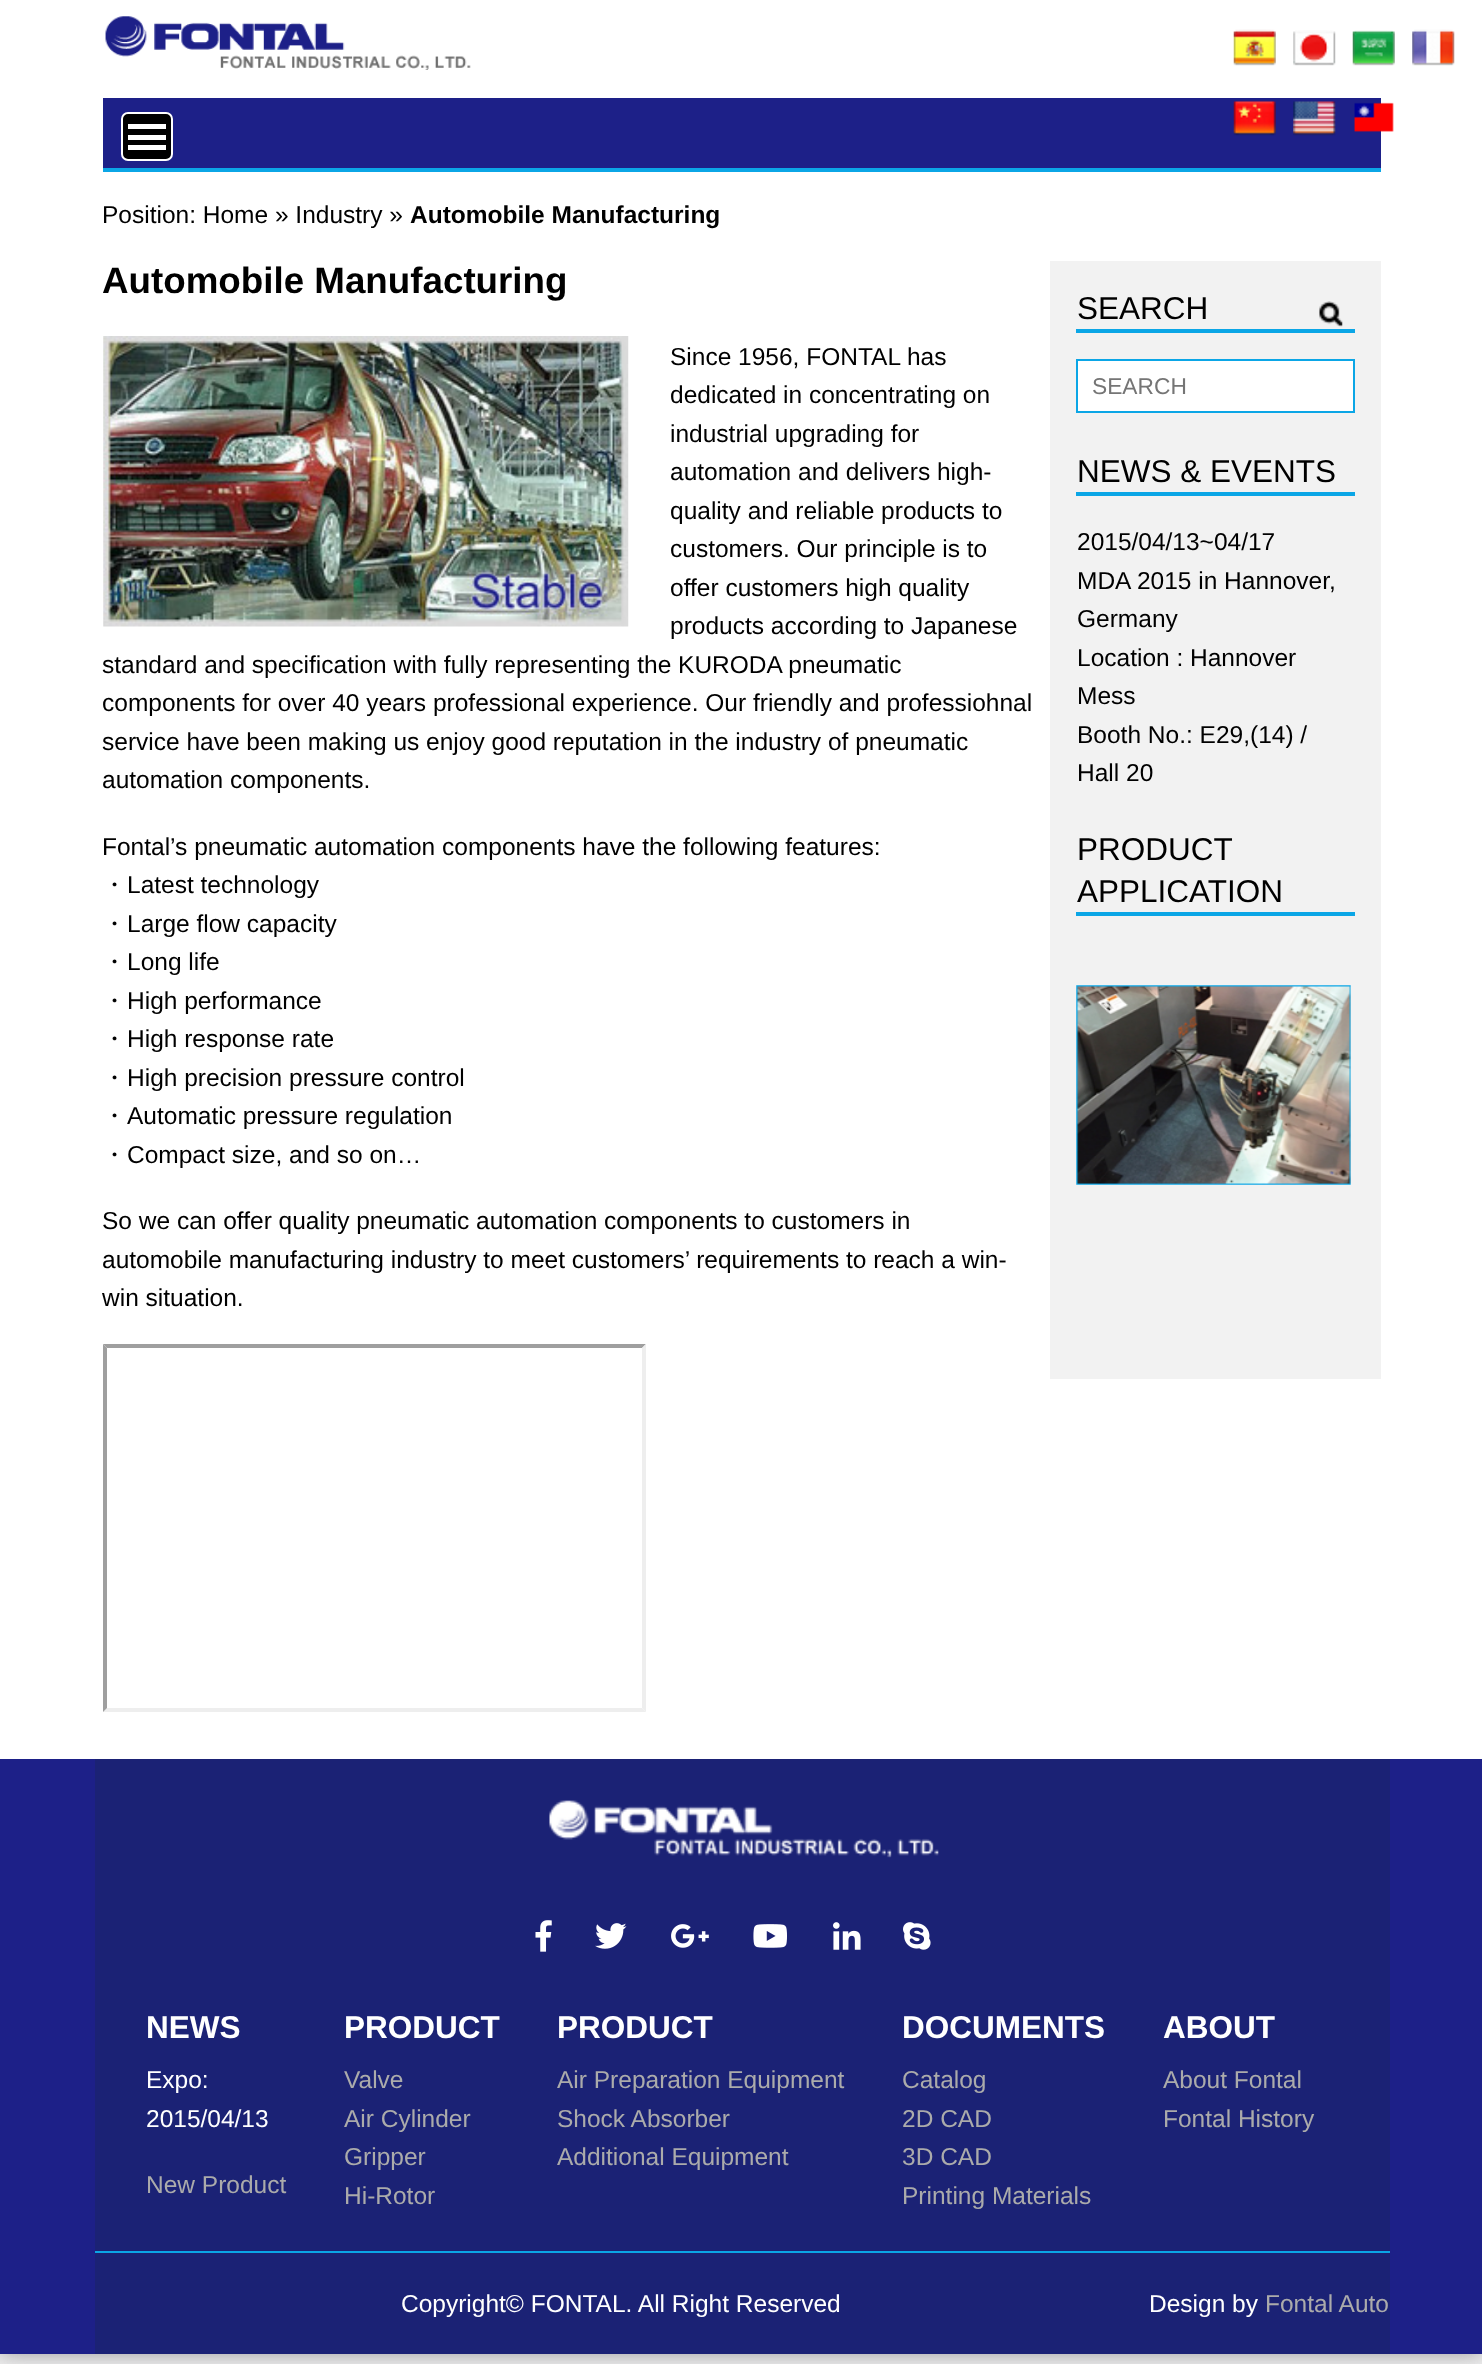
<svg xmlns="http://www.w3.org/2000/svg" width="1482" height="2364">
<rect width="100%" height="100%" fill="#eeeeef"/>
<rect width="1482" height="2354" fill="#999" filter="blur(10.5px)"/>
<rect width="1482" height="1759" fill="#fff"/>
<image x="1233" y="29" width="43" height="37" href="media/1.png"/>
<image x="1293" y="30" width="43" height="36" href="media/2.png"/>
<image x="1352" y="30" width="43" height="36" href="media/3.png"/>
<image x="1412" y="29" width="43" height="37" href="media/4.png"/>
<rect x="103" y="98" width="1278" height="70" fill="#1d2088"/>
<image x="1233" y="100" width="43" height="36" href="media/5.png"/>
<image x="1293" y="101" width="43" height="35" href="media/6.png"/>
<image x="1354" y="102" width="40" height="30" href="media/7.png"/>
<image x="105" y="16" width="366" height="54" href="media/8.png"/>
<rect x="103" y="168" width="1278" height="4" fill="#0ba6e6"/>
<rect x="122" y="113" width="50" height="47" rx="6" fill="#000" stroke="#fff" stroke-width="2"/>
<rect x="128" y="145" width="38" height="5" fill="#fff"/>
<rect x="128" y="135" width="38" height="5" fill="#fff"/>
<rect x="128" y="124" width="38" height="5" fill="#fff"/>
<text x="102" y="223" style="font-family:Liberation Sans;font-size:24.5px;fill:#000">Position: Home » Industry »</text>
<text x="410" y="223" style="font-family:Liberation Sans;font-size:24.5px;font-weight:bold;fill:#000">Automobile Manufacturing</text>
<text x="102" y="293" style="font-family:Liberation Sans;font-size:36.75px;font-weight:bold;fill:#000">Automobile Manufacturing</text>
<image x="103" y="336" width="526" height="291" href="media/9.png"/>
<text x="670" y="365" style="font-family:Liberation Sans;font-size:24.5px;fill:#000">Since 1956, FONTAL has</text>
<text x="670" y="403" style="font-family:Liberation Sans;font-size:24.5px;fill:#000">dedicated in concentrating on</text>
<text x="670" y="442" style="font-family:Liberation Sans;font-size:24.5px;fill:#000">industrial upgrading for</text>
<text x="670" y="480" style="font-family:Liberation Sans;font-size:24.5px;fill:#000">automation and delivers high-</text>
<text x="670" y="519" style="font-family:Liberation Sans;font-size:24.5px;fill:#000">quality and reliable products to</text>
<text x="670" y="557" style="font-family:Liberation Sans;font-size:24.5px;fill:#000">customers. Our principle is to</text>
<text x="670" y="596" style="font-family:Liberation Sans;font-size:24.5px;fill:#000">offer customers high quality</text>
<text x="670" y="634" style="font-family:Liberation Sans;font-size:24.5px;fill:#000">products according to Japanese</text>
<text x="102" y="673" style="font-family:Liberation Sans;font-size:24.5px;fill:#000">standard and specification with fully representing the KURODA pneumatic</text>
<text x="102" y="711" style="font-family:Liberation Sans;font-size:24.5px;fill:#000">components for over 40 years professional experience. Our friendly and professiohnal</text>
<text x="102" y="750" style="font-family:Liberation Sans;font-size:24.5px;fill:#000">service have been making us enjoy good reputation in the industry of pneumatic</text>
<text x="102" y="788" style="font-family:Liberation Sans;font-size:24.5px;fill:#000">automation components.</text>
<text x="102" y="855" style="font-family:Liberation Sans;font-size:24.5px;fill:#000">Fontal’s pneumatic automation components have the following features:</text>
<text x="102" y="893" style="font-family:WenQuanYi Zen Hei;font-size:24.5px;font-weight:500;fill:#000">・</text>
<text x="127" y="893" style="font-family:Liberation Sans;font-size:24.5px;fill:#000">Latest technology</text>
<text x="102" y="932" style="font-family:WenQuanYi Zen Hei;font-size:24.5px;font-weight:500;fill:#000">・</text>
<text x="127" y="932" style="font-family:Liberation Sans;font-size:24.5px;fill:#000">Large flow capacity</text>
<text x="102" y="970" style="font-family:WenQuanYi Zen Hei;font-size:24.5px;font-weight:500;fill:#000">・</text>
<text x="127" y="970" style="font-family:Liberation Sans;font-size:24.5px;fill:#000">Long life</text>
<text x="102" y="1009" style="font-family:WenQuanYi Zen Hei;font-size:24.5px;font-weight:500;fill:#000">・</text>
<text x="127" y="1009" style="font-family:Liberation Sans;font-size:24.5px;fill:#000">High performance</text>
<text x="102" y="1047" style="font-family:WenQuanYi Zen Hei;font-size:24.5px;font-weight:500;fill:#000">・</text>
<text x="127" y="1047" style="font-family:Liberation Sans;font-size:24.5px;fill:#000">High response rate</text>
<text x="102" y="1086" style="font-family:WenQuanYi Zen Hei;font-size:24.5px;font-weight:500;fill:#000">・</text>
<text x="127" y="1086" style="font-family:Liberation Sans;font-size:24.5px;fill:#000">High precision pressure control</text>
<text x="102" y="1124" style="font-family:WenQuanYi Zen Hei;font-size:24.5px;font-weight:500;fill:#000">・</text>
<text x="127" y="1124" style="font-family:Liberation Sans;font-size:24.5px;fill:#000">Automatic pressure regulation</text>
<text x="102" y="1163" style="font-family:WenQuanYi Zen Hei;font-size:24.5px;font-weight:500;fill:#000">・</text>
<text x="127" y="1163" style="font-family:Liberation Sans;font-size:24.5px;fill:#000">Compact size, and so on…</text>
<text x="102" y="1229" style="font-family:Liberation Sans;font-size:24.5px;fill:#000">So we can offer quality pneumatic automation components to customers in</text>
<text x="102" y="1268" style="font-family:Liberation Sans;font-size:24.5px;fill:#000">automobile manufacturing industry to meet customers’ requirements to reach a win-</text>
<text x="102" y="1306" style="font-family:Liberation Sans;font-size:24.5px;fill:#000">win situation.</text>
<path d="M103 1344h543l-4 4h-535z" fill="#9f9f9f"/>
<path d="M646 1344v368l-4-4v-360z" fill="#eee"/>
<path d="M646 1712h-543l4-4h535z" fill="#eee"/>
<path d="M103 1712v-368l4 4v360z" fill="#9f9f9f"/>
<rect x="1050" y="261" width="331" height="1118" fill="#f2f2f2"/>
<rect x="1076" y="329" width="279" height="4" fill="#0ba6e6"/>
<text x="1077" y="319" style="font-family:Liberation Sans;font-size:31.5px;fill:#000">SEARCH</text>
<image x="1319" y="301" width="24" height="26" href="media/10.png"/>
<rect x="1077" y="360" width="277" height="52" fill="#fff" stroke="#0ba6e6" stroke-width="2"/>
<text x="1092" y="394" style="font-family:Liberation Sans;font-size:22.75px;fill:#757575">SEARCH</text>
<rect x="1076" y="492" width="279" height="4" fill="#0ba6e6"/>
<text x="1077" y="482" style="font-family:Liberation Sans;font-size:31.5px;fill:#000">NEWS &amp; EVENTS</text>
<text x="1077" y="550" style="font-family:Liberation Sans;font-size:24.5px;fill:#000">2015/04/13~04/17</text>
<text x="1077" y="589" style="font-family:Liberation Sans;font-size:24.5px;fill:#000">MDA 2015 in Hannover,</text>
<text x="1077" y="627" style="font-family:Liberation Sans;font-size:24.5px;fill:#000">Germany</text>
<text x="1077" y="666" style="font-family:Liberation Sans;font-size:24.5px;fill:#000">Location : Hannover</text>
<text x="1077" y="704" style="font-family:Liberation Sans;font-size:24.5px;fill:#000">Mess</text>
<text x="1077" y="743" style="font-family:Liberation Sans;font-size:24.5px;fill:#000">Booth No.: E29,(14) /</text>
<text x="1077" y="781" style="font-family:Liberation Sans;font-size:24.5px;fill:#000">Hall 20</text>
<rect x="1076" y="912" width="279" height="4" fill="#0ba6e6"/>
<text x="1077" y="860" style="font-family:Liberation Sans;font-size:31.5px;fill:#000">PRODUCT</text>
<text x="1077" y="902" style="font-family:Liberation Sans;font-size:31.5px;fill:#000">APPLICATION</text>
<image x="1076" y="985" width="275" height="200" href="media/11.png"/>
<rect y="1759" width="1482" height="595" fill="#1d2088"/>
<rect x="95" y="1759" width="1295" height="595" fill="#1b2275"/>
<image x="549" y="1800" width="390" height="58" href="media/12.png"/>
<image x="535" y="1920" width="17" height="32" href="media/13.png"/>
<image x="595" y="1923" width="32" height="26" href="media/14.png"/>
<image x="671" y="1924" width="38" height="24" href="media/15.png"/>
<image x="753" y="1924" width="34" height="24" href="media/16.png"/>
<image x="833" y="1922" width="28" height="28" href="media/17.png"/>
<image x="903" y="1922" width="28" height="28" href="media/18.png"/>
<text x="146" y="2038" style="font-family:Liberation Sans;font-size:31.5px;font-weight:bold;fill:#fff">NEWS</text>
<text x="146" y="2088" style="font-family:Liberation Sans;font-size:24.5px;fill:#fff">Expo:</text>
<text x="146" y="2127" style="font-family:Liberation Sans;font-size:24.5px;fill:#fff">2015/04/13</text>
<text x="146" y="2193" style="font-family:Liberation Sans;font-size:24.5px;fill:#ababab">New Product</text>
<text x="344" y="2038" style="font-family:Liberation Sans;font-size:31.5px;font-weight:bold;fill:#fff">PRODUCT</text>
<text x="344" y="2088" style="font-family:Liberation Sans;font-size:24.5px;fill:#ababab">Valve</text>
<text x="344" y="2127" style="font-family:Liberation Sans;font-size:24.5px;fill:#ababab">Air Cylinder</text>
<text x="344" y="2165" style="font-family:Liberation Sans;font-size:24.5px;fill:#ababab">Gripper</text>
<text x="344" y="2204" style="font-family:Liberation Sans;font-size:24.5px;fill:#ababab">Hi-Rotor</text>
<text x="557" y="2038" style="font-family:Liberation Sans;font-size:31.5px;font-weight:bold;fill:#fff">PRODUCT</text>
<text x="557" y="2088" style="font-family:Liberation Sans;font-size:24.5px;fill:#ababab">Air Preparation Equipment</text>
<text x="557" y="2127" style="font-family:Liberation Sans;font-size:24.5px;fill:#ababab">Shock Absorber</text>
<text x="557" y="2165" style="font-family:Liberation Sans;font-size:24.5px;fill:#ababab">Additional Equipment</text>
<text x="902" y="2038" style="font-family:Liberation Sans;font-size:31.5px;font-weight:bold;fill:#fff">DOCUMENTS</text>
<text x="902" y="2088" style="font-family:Liberation Sans;font-size:24.5px;fill:#ababab">Catalog</text>
<text x="902" y="2127" style="font-family:Liberation Sans;font-size:24.5px;fill:#ababab">2D CAD</text>
<text x="902" y="2165" style="font-family:Liberation Sans;font-size:24.5px;fill:#ababab">3D CAD</text>
<text x="902" y="2204" style="font-family:Liberation Sans;font-size:24.5px;fill:#ababab">Printing Materials</text>
<text x="1163" y="2038" style="font-family:Liberation Sans;font-size:31.5px;font-weight:bold;fill:#fff">ABOUT</text>
<text x="1163" y="2088" style="font-family:Liberation Sans;font-size:24.5px;fill:#ababab">About Fontal</text>
<text x="1163" y="2127" style="font-family:Liberation Sans;font-size:24.5px;fill:#ababab">Fontal History</text>
<rect x="95" y="2251" width="1295" height="2" fill="#0ba6e6"/>
<text x="401" y="2312" style="font-family:Liberation Sans;font-size:24.5px;fill:#fff">Copyright© FONTAL. All Right Reserved</text>
<text x="1149" y="2312" style="font-family:Liberation Sans;font-size:24.5px;fill:#fff">Design by</text>
<text x="1265" y="2312" style="font-family:Liberation Sans;font-size:24.5px;fill:#ababab">Fontal Auto</text>
</svg>
